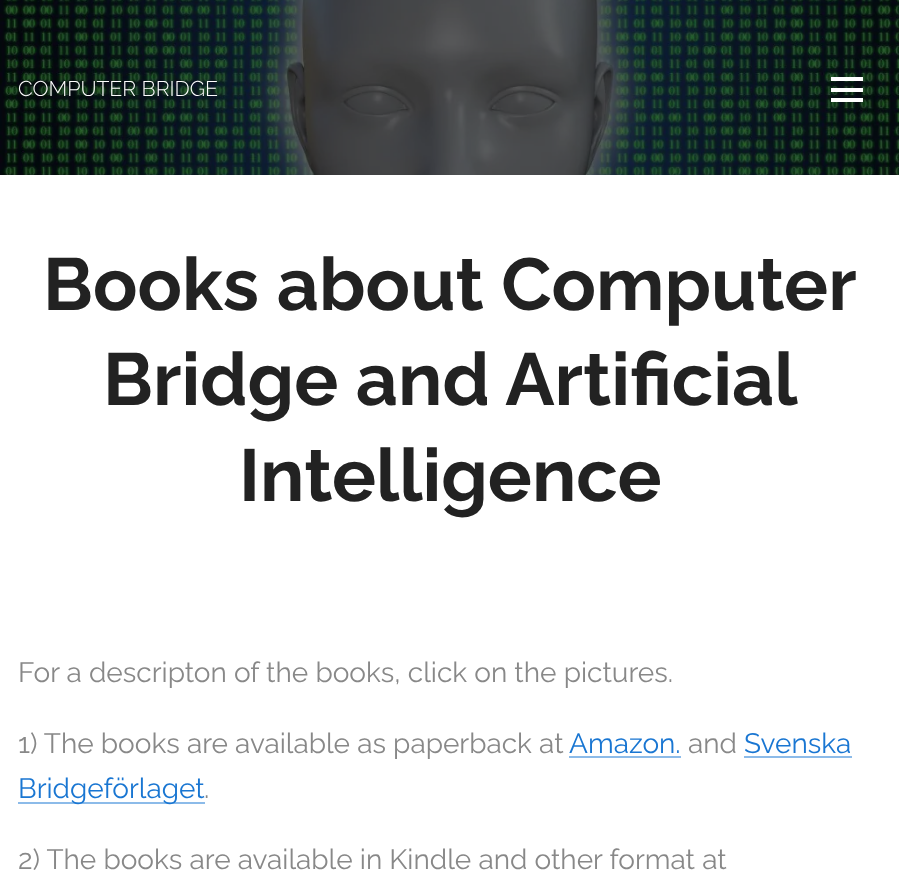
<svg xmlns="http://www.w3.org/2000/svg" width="899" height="891">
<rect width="100%" height="100%" fill="#fff"/>
<image x="0" y="0" width="899" height="175" href="media/1.png"/>
<text x="18" y="96" style="font-family:Raleway;font-size:21.25px;font-weight:300;fill:#fff">COMPUTER BRIDGE</text>
<rect x="831" y="88" width="32" height="4" fill="#fff"/>
<rect x="831" y="77" width="32" height="4" fill="#fff"/>
<rect x="831" y="98" width="32" height="4" fill="#fff"/>
<text x="43" y="310" style="font-family:Raleway;font-size:73.5px;font-weight:bold;fill:#222">Books about Computer</text>
<text x="103" y="405" style="font-family:Raleway;font-size:73.5px;font-weight:bold;fill:#222">Bridge and Artificial</text>
<text x="239" y="501" style="font-family:Raleway;font-size:73.5px;font-weight:bold;fill:#222">Intelligence</text>
<text x="18" y="682" style="font-family:Raleway;font-size:28px;fill:#888">For a descripton of the books, click on the pictures.</text>
<text x="18" y="753" style="font-family:Raleway;font-size:28px;fill:#888">1) The books are available as paperback at</text>
<text x="569" y="753" style="font-family:Raleway;font-size:28px;fill:#1976d2">Amazon.</text>
<rect x="569" y="756" width="112" height="2" fill="#8cbbe9"/>
<text x="688" y="753" style="font-family:Raleway;font-size:28px;fill:#888">and</text>
<text x="744" y="753" style="font-family:Raleway;font-size:28px;fill:#1976d2">Svenska</text>
<rect x="744" y="756" width="108" height="2" fill="#8cbbe9"/>
<rect x="18" y="802" width="187" height="2" fill="#8cbbe9"/>
<text x="18" y="798" style="font-family:Raleway;font-size:28px;fill:#1976d2">Bridgeförlaget</text>
<text x="204" y="798" style="font-family:Raleway;font-size:28px;fill:#888">.</text>
<text x="18" y="869" style="font-family:Raleway;font-size:28px;fill:#888">2) The books are available in Kindle and other format at</text>
</svg>
